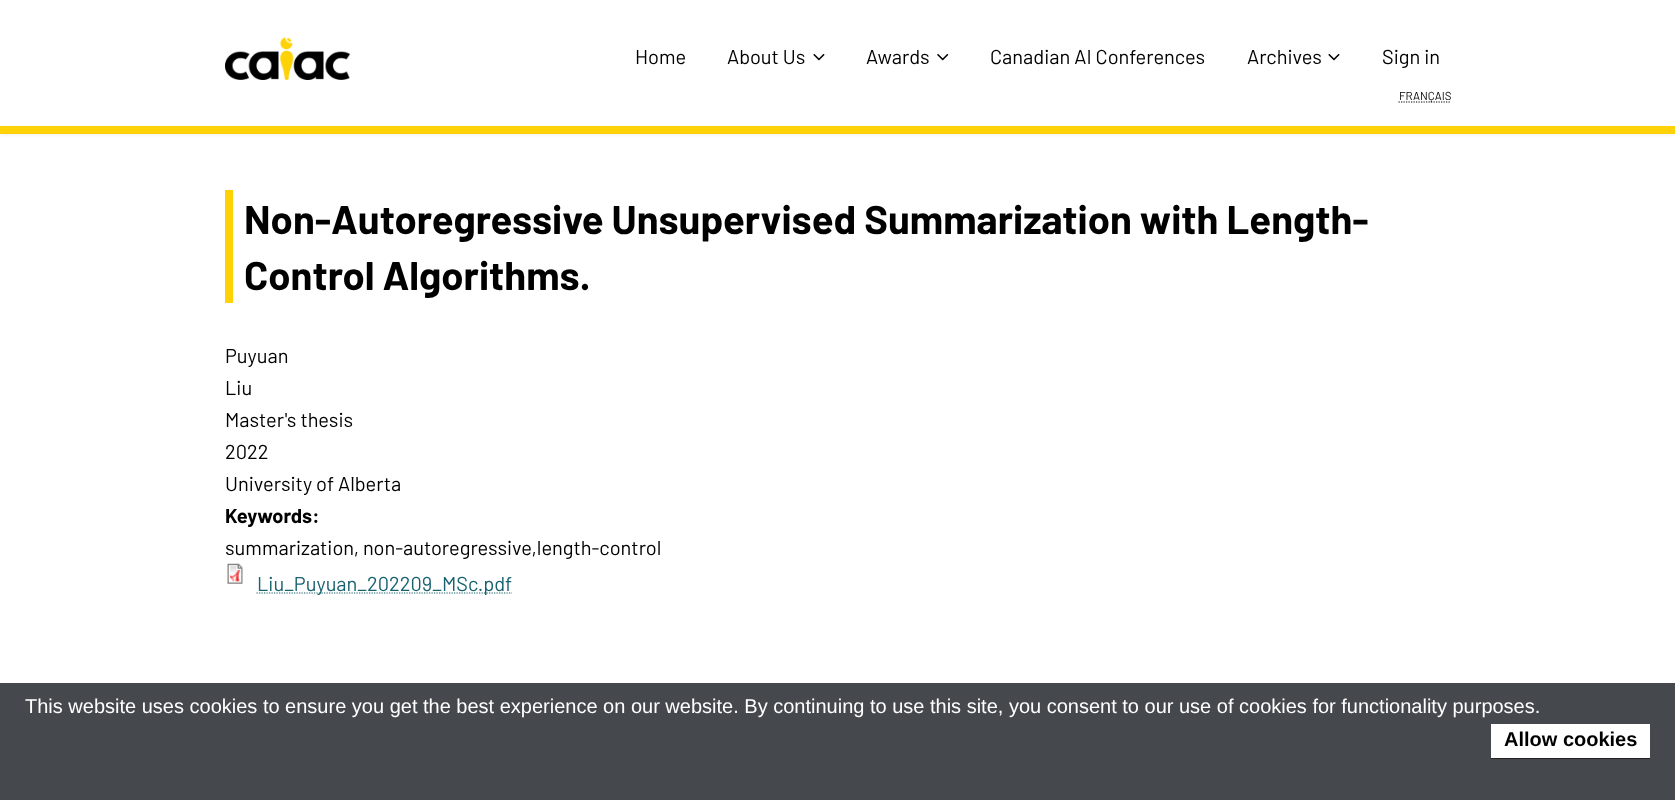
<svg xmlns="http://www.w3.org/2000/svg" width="1675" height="800">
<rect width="100%" height="100%" fill="#fff"/>
<rect width="1675" height="134" fill="#0000001a" filter="blur(2px)"/>
<rect width="1675" height="126" fill="#fff"/>
<rect y="126" width="1675" height="8" fill="#fed206"/>
<image x="225" y="37" width="125" height="43" href="media/1.png"/>
<text x="635" y="64" style="font-family:Barlow;font-size:20px;fill:#000">Home</text>
<text x="727" y="64" style="font-family:Barlow;font-size:20px;fill:#000">About Us</text>
<image x="813" y="53" width="12" height="8" href="media/2.png"/>
<text x="866" y="64" style="font-family:Barlow;font-size:20px;fill:#000">Awards</text>
<image x="937" y="53" width="12" height="8" href="media/3.png"/>
<text x="990" y="64" style="font-family:Barlow;font-size:20px;fill:#000">Canadian AI Conferences</text>
<text x="1247" y="64" style="font-family:Barlow;font-size:20px;fill:#000">Archives</text>
<image x="1328" y="53" width="12" height="8" href="media/2.png"/>
<text x="1382" y="64" style="font-family:Barlow;font-size:20px;fill:#000">Sign in</text>
<path d="M1398.5 102h51.5" fill="none" stroke="#000" stroke-width="1.2" stroke-dasharray="1.25 1.25"/>
<text x="1399" y="100" style="font-family:Barlow;font-size:11.5px;fill:#000">FRANÇAIS</text>
<rect x="225" y="190" width="8" height="113" fill="#fed206"/>
<text x="244" y="234" style="font-family:Barlow;font-size:40px;font-weight:bold;fill:#000">Non-Autoregressive Unsupervised Summarization with Length-</text>
<text x="244" y="290" style="font-family:Barlow;font-size:40px;font-weight:bold;fill:#000">Control Algorithms.</text>
<text x="225" y="363" style="font-family:Barlow;font-size:20px;fill:#000">Puyuan</text>
<text x="225" y="395" style="font-family:Barlow;font-size:20px;fill:#000">Liu</text>
<text x="225" y="427" style="font-family:Barlow;font-size:20px;fill:#000">Master's thesis</text>
<text x="225" y="459" style="font-family:Barlow;font-size:20px;fill:#000">2022</text>
<text x="225" y="491" style="font-family:Barlow;font-size:20px;fill:#000">University of Alberta</text>
<text x="225" y="523" style="font-family:Barlow;font-size:20px;font-weight:bold;fill:#000">Keywords:</text>
<text x="225" y="555" style="font-family:Barlow;font-size:20px;fill:#000">summarization, non-autoregressive,length-control</text>
<image x="227" y="563" width="16" height="21" href="media/4.png"/>
<path d="M256.5 593h255.5" fill="none" stroke="#17626f" stroke-width="1.2" stroke-dasharray="1.25 1.25"/>
<text x="257" y="591" style="font-family:Barlow;font-size:20px;fill:#17626f">Liu_Puyuan_202209_MSc.pdf</text>
<rect y="683" width="1675" height="117" fill="#45484d"/>
<text x="25" y="713" style="font-family:Liberation Sans;font-size:20px;fill:#fff">This website uses cookies to ensure you get the best experience on our website. By continuing to use this site, you consent to our use of cookies for functionality purposes.</text>
<rect x="1491" y="724" width="159" height="34" fill="#fff"/>
<rect x="1491" y="758" width="159" height="1" fill="#222"/>
<text x="1504" y="746" style="font-family:Liberation Sans;font-size:20px;font-weight:bold;fill:#000">Allow cookies</text>
</svg>
